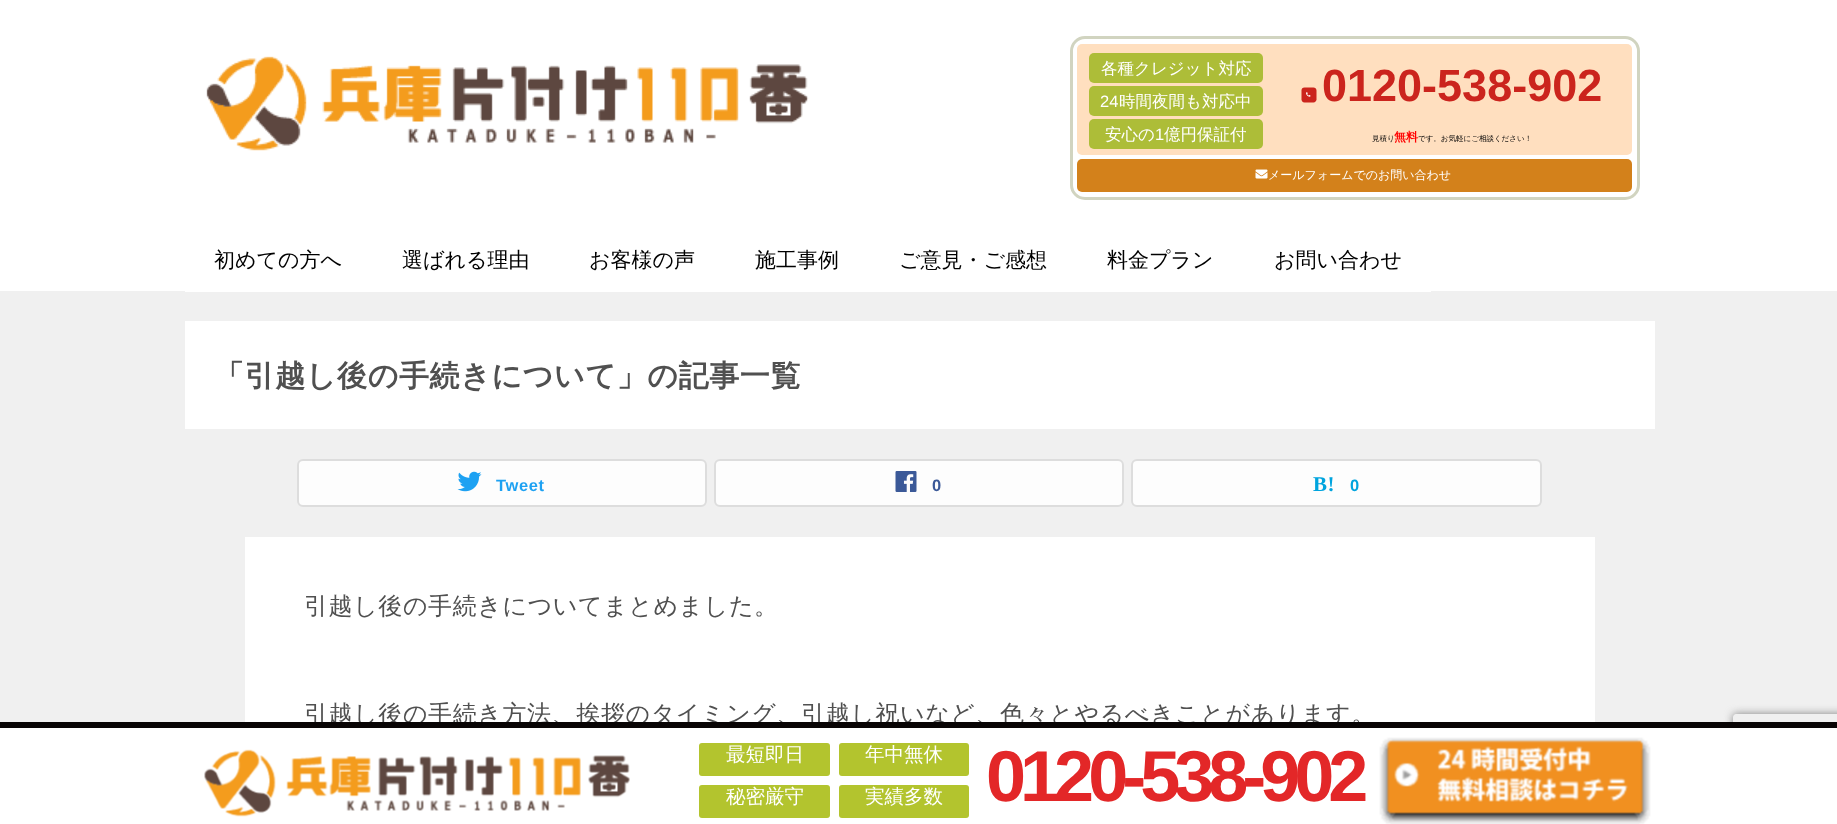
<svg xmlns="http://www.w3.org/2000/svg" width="1837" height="824">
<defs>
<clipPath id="clip1"><path d="M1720 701h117v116h-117zm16 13h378c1.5 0 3 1.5 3 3v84c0 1.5-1.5 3-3 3h-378c-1.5 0-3-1.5-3-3v-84c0-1.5 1.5-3 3-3z" clip-rule="evenodd"/></clipPath>
</defs>
<rect width="100%" height="100%" fill="#f0f0f0"/>
<rect width="1837" height="291" fill="#fff"/>
<image x="206" y="56" width="603" height="95" href="media/1.png"/>
<rect x="1071.5" y="37.5" width="567" height="161" rx="13.5" fill="none" stroke="#d1d4c0" stroke-width="3"/>
<rect x="1077" y="44" width="555" height="111" rx="5" fill="#ffdfbf"/>
<rect x="1089" y="53" width="174" height="30" rx="5" fill="#adbd38"/>
<text x="1101" y="74" style="font-family:WenQuanYi Zen Hei;font-size:16.5px;font-weight:500;fill:#fff">各種クレジット対応</text>
<rect x="1089" y="86" width="174" height="30" rx="5" fill="#adbd38"/>
<text x="1100" y="107" style="font-family:Liberation Sans;font-size:16.5px;fill:#fff">24</text>
<text x="1119" y="107" style="font-family:WenQuanYi Zen Hei;font-size:16.5px;font-weight:500;fill:#fff">時間夜間も対応中</text>
<rect x="1089" y="119" width="174" height="30" rx="5" fill="#adbd38"/>
<text x="1105" y="140" style="font-family:WenQuanYi Zen Hei;font-size:16.5px;font-weight:500;fill:#fff">安心の</text>
<text x="1155" y="140" style="font-family:Liberation Sans;font-size:16.5px;fill:#fff">1</text>
<text x="1164" y="140" style="font-family:WenQuanYi Zen Hei;font-size:16.5px;font-weight:500;fill:#fff">億円保証付</text>
<path d="M1313.5 87.5h-9c-2 0-3 1-3 3v9c0 1.5 1 3 3 3h9c1.5 0 3-1.5 3-3v-9c0-2-1.5-3-3-3z" fill="#cb241d"/>
<image x="1306" y="92" width="5" height="5" href="media/2.png"/>
<text x="1322" y="101" style="font-family:Liberation Sans;font-size:45px;font-weight:bold;fill:#cb241d">0120-538-902</text>
<text x="1372" y="141" style="font-family:WenQuanYi Zen Hei;font-size:7.5px;font-weight:500;fill:#000">見積り</text>
<text x="1394" y="141" style="font-family:WenQuanYi Zen Hei;font-size:12px;font-weight:bold;fill:#f00">無料</text>
<text x="1418" y="141" style="font-family:WenQuanYi Zen Hei;font-size:7.5px;font-weight:500;fill:#000">です。お気軽にご相談ください！</text>
<rect x="1077" y="159" width="555" height="33" rx="5" fill="#d3811b"/>
<image x="1255" y="169" width="13" height="10" href="media/3.png"/>
<text x="1268" y="179" style="font-family:WenQuanYi Zen Hei;font-size:12px;font-weight:500;fill:#fff">メールフォームでのお問い合わせ</text>
<rect x="185" y="291" width="1246" height="1" fill="#fff"/>
<text x="214" y="267" style="font-family:WenQuanYi Zen Hei;font-size:21px;font-weight:500;fill:#000">初めての方へ</text>
<text x="402" y="267" style="font-family:WenQuanYi Zen Hei;font-size:21px;font-weight:500;fill:#000">選ばれる理由</text>
<text x="589" y="267" style="font-family:WenQuanYi Zen Hei;font-size:21px;font-weight:500;fill:#000">お客様の声</text>
<text x="755" y="267" style="font-family:WenQuanYi Zen Hei;font-size:21px;font-weight:500;fill:#000">施工事例</text>
<text x="899" y="267" style="font-family:WenQuanYi Zen Hei;font-size:21px;font-weight:500;fill:#000">ご意見・ご感想</text>
<text x="1107" y="267" style="font-family:WenQuanYi Zen Hei;font-size:21px;font-weight:500;fill:#000">料金プラン</text>
<text x="1274" y="267" style="font-family:WenQuanYi Zen Hei;font-size:21px;font-weight:500;fill:#000">お問い合わせ</text>
<rect x="185" y="321" width="1470" height="108" fill="#fff"/>
<text x="214" y="386" style="font-family:WenQuanYi Zen Hei;font-size:30px;font-weight:bold;letter-spacing:0.6px;fill:#505050">「引越し後の手続きについて」の記事一覧</text>
<rect x="298" y="460" width="408" height="46" rx="5" fill="#fdfdfd" stroke="#ddd" stroke-width="2"/>
<image x="457" y="471" width="25" height="21" href="media/4.png"/>
<text x="496" y="491" style="font-family:Liberation Sans;font-size:16.5px;font-weight:bold;letter-spacing:0.6px;fill:#1da1f2">Tweet</text>
<rect x="715" y="460" width="408" height="46" rx="5" fill="#fdfdfd" stroke="#ddd" stroke-width="2"/>
<image x="895" y="471" width="22" height="21" href="media/5.png"/>
<text x="932" y="491" style="font-family:Liberation Sans;font-size:16.5px;font-weight:bold;letter-spacing:0.6px;fill:#3b5998">0</text>
<rect x="1132" y="460" width="409" height="46" rx="5" fill="#fdfdfd" stroke="#ddd" stroke-width="2"/>
<text x="1313" y="491" style="font-family:Liberation Serif;font-size:21px;font-weight:bold;letter-spacing:0.6px;fill:#00a4de">B!</text>
<text x="1350" y="491" style="font-family:Liberation Sans;font-size:16.5px;font-weight:bold;letter-spacing:0.6px;fill:#00a4de">0</text>
<rect x="245" y="537" width="1350" height="185" fill="#fff"/>
<text x="304" y="614" style="font-family:WenQuanYi Zen Hei;font-size:24px;font-weight:500;letter-spacing:0.6px;fill:#505050">引越し後の手続きについてまとめました。</text>
<text x="304" y="722" style="font-family:WenQuanYi Zen Hei;font-size:24px;font-weight:500;letter-spacing:0.6px;fill:#505050">引越し後の手続き方法、挨拶のタイミング、引越し祝いなど、色々とやるべきことがあります。</text>
<g clip-path="url(#clip1)">
<rect x="1733" y="714" width="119" height="90" rx="3" fill="#808080" filter="blur(4px)"/>
</g>
<rect y="728" width="1837" height="96" fill="#fff"/>
<rect y="722" width="1837" height="6" fill="#080404"/>
<image x="204" y="749" width="426" height="68" href="media/6.png"/>
<rect x="699" y="743" width="131" height="33" rx="3" fill="#b3c42e"/>
<text x="726" y="761" style="font-family:WenQuanYi Zen Hei;font-size:19.5px;font-weight:500;fill:#fff">最短即日</text>
<rect x="839" y="743" width="130" height="33" rx="3" fill="#b3c42e"/>
<text x="865" y="761" style="font-family:WenQuanYi Zen Hei;font-size:19.5px;font-weight:500;fill:#fff">年中無休</text>
<rect x="699" y="785" width="131" height="33" rx="3" fill="#b3c42e"/>
<text x="726" y="803" style="font-family:WenQuanYi Zen Hei;font-size:19.5px;font-weight:500;fill:#fff">秘密厳守</text>
<rect x="839" y="785" width="130" height="33" rx="3" fill="#b3c42e"/>
<text x="865" y="803" style="font-family:WenQuanYi Zen Hei;font-size:19.5px;font-weight:500;fill:#fff">実績多数</text>
<text x="986" y="801" style="font-family:Liberation Sans;font-size:72px;font-weight:bold;letter-spacing:-6px;fill:#e32728">0120-538-902</text>
<image x="1379" y="737" width="272" height="87" href="media/7.png"/>
</svg>
